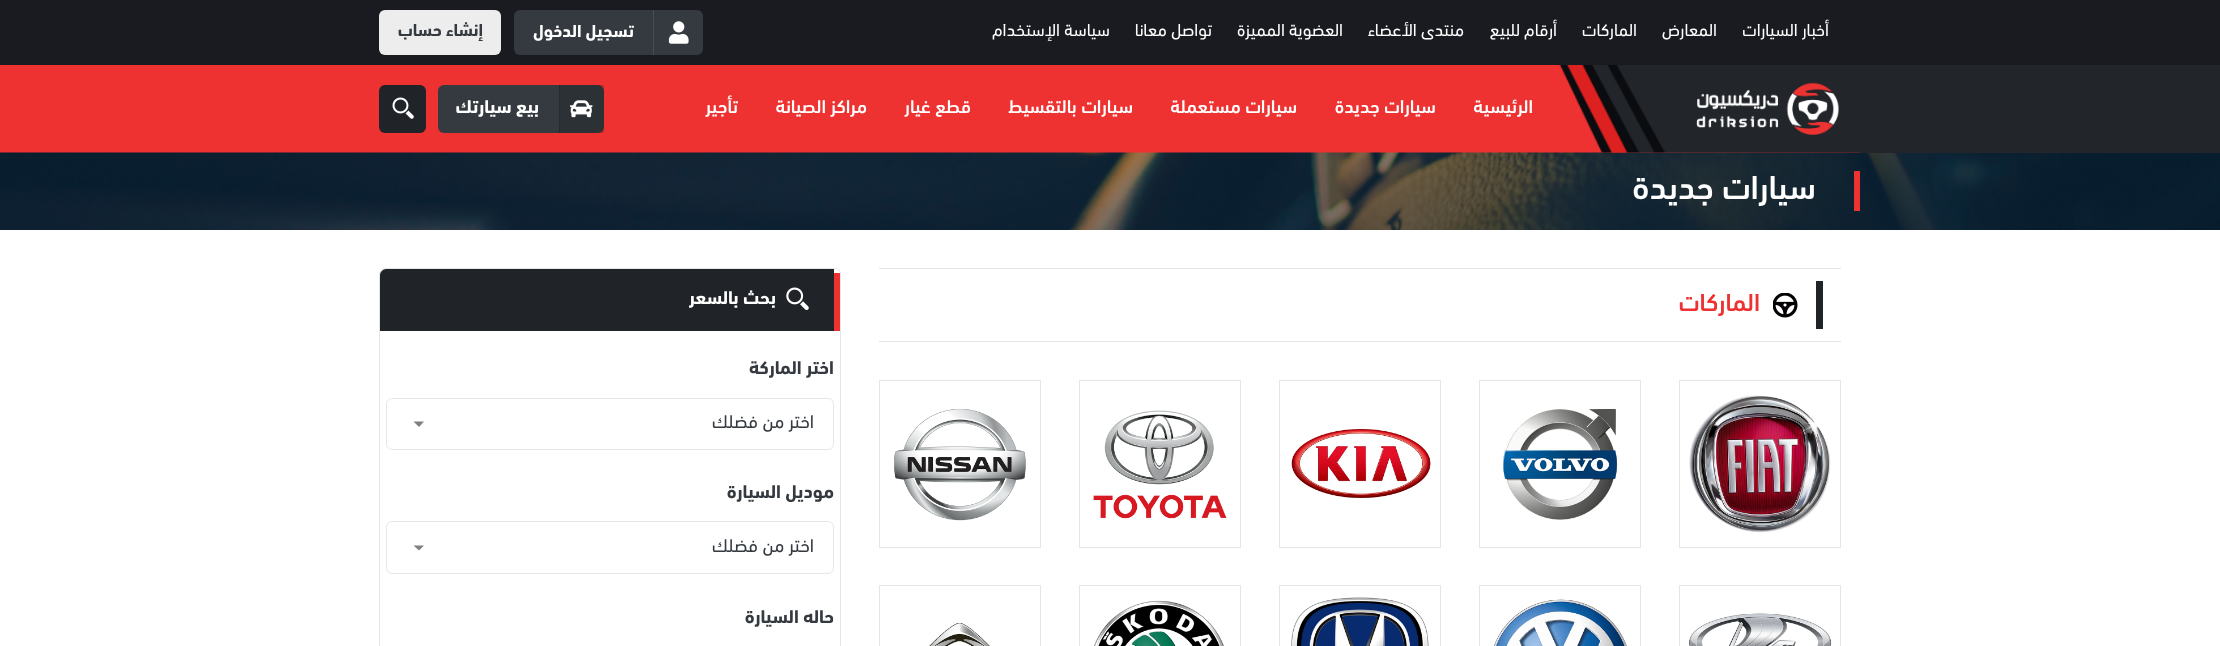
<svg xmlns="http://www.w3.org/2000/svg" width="2220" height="646">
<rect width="100%" height="100%" fill="#fff"/>
<rect width="2220" height="65" fill="#191b20"/>
<text x="1829" y="36" style="font-family:'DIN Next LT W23';font-size:17.5px;direction:rtl;fill:#fff">أخبار السيارات</text>
<text x="1717" y="36" style="font-family:'DIN Next LT W23';font-size:17.5px;direction:rtl;fill:#fff">المعارض</text>
<text x="1637" y="36" style="font-family:'DIN Next LT W23';font-size:17.5px;direction:rtl;fill:#fff">الماركات</text>
<text x="1557" y="36" style="font-family:'DIN Next LT W23';font-size:17.5px;direction:rtl;fill:#fff">أرقام للبيع</text>
<text x="1464" y="36" style="font-family:'DIN Next LT W23';font-size:17.5px;direction:rtl;fill:#fff">منتدى الأعضاء</text>
<text x="1343" y="36" style="font-family:'DIN Next LT W23';font-size:17.5px;direction:rtl;fill:#fff">العضوية المميزة</text>
<text x="1212" y="36" style="font-family:'DIN Next LT W23';font-size:17.5px;direction:rtl;fill:#fff">تواصل معانا</text>
<text x="1110" y="36" style="font-family:'DIN Next LT W23';font-size:17.5px;direction:rtl;fill:#fff">سياسة الإستخدام</text>
<rect x="514" y="10" width="189" height="45" rx="6" fill="#343a40"/>
<rect x="653" y="10" width="1" height="45" fill="#484e53"/>
<image x="668" y="21" width="21" height="23" href="media/1.png"/>
<text x="634" y="37" style="font-family:'DIN Next LT W23';font-size:17.5px;font-weight:bold;direction:rtl;fill:#fff">تسجيل الدخول</text>
<rect x="379" y="10" width="122" height="45" rx="6" fill="#ededed"/>
<text x="483" y="36" style="font-family:'DIN Next LT W23';font-size:17.5px;font-weight:bold;direction:rtl;fill:#343a40">إنشاء حساب</text>
<rect y="65" width="1860" height="88" fill="#ee3131"/>
<image x="0" y="152" width="2220" height="78" href="media/6.png"/>
<image x="1559" y="65" width="301" height="88" href="media/2.png"/>
<rect x="1860" y="65" width="360" height="88" fill="#22252a"/>
<image x="1696" y="82" width="143" height="53" href="media/3.png"/>
<text x="1533" y="113" style="font-family:'DIN Next LT W23';font-size:18.75px;font-weight:500;direction:rtl;fill:#fff">الرئيسية</text>
<text x="1436" y="113" style="font-family:'DIN Next LT W23';font-size:18.75px;font-weight:500;direction:rtl;fill:#fff">سيارات جديدة</text>
<text x="1297" y="113" style="font-family:'DIN Next LT W23';font-size:18.75px;font-weight:500;direction:rtl;fill:#fff">سيارات مستعملة</text>
<text x="1133" y="113" style="font-family:'DIN Next LT W23';font-size:18.75px;font-weight:500;direction:rtl;fill:#fff">سيارات بالتقسيط</text>
<text x="971" y="113" style="font-family:'DIN Next LT W23';font-size:18.75px;font-weight:500;direction:rtl;fill:#fff">قطع غيار</text>
<text x="867" y="113" style="font-family:'DIN Next LT W23';font-size:18.75px;font-weight:500;direction:rtl;fill:#fff">مراكز الصيانة</text>
<text x="738" y="113" style="font-family:'DIN Next LT W23';font-size:18.75px;font-weight:500;direction:rtl;fill:#fff">تأجير</text>
<rect x="438" y="85" width="166" height="48" rx="6" fill="#343a40"/>
<rect x="560" y="85" width="44" height="48" fill="#00000026"/>
<rect x="559" y="85" width="1" height="48" fill="#262a2e"/>
<image x="570" y="100" width="23" height="18" href="media/4.png"/>
<text x="539" y="113" style="font-family:'DIN Next LT W23';font-size:18.75px;font-weight:bold;direction:rtl;fill:#fff">بيع سيارتك</text>
<rect x="379" y="85" width="47" height="48" rx="6" fill="#202328"/>
<image x="392" y="97" width="22" height="22" href="media/5.png"/>
<rect x="1854" y="171" width="6" height="40" fill="#ee3131"/>
<text x="1816" y="199" style="font-family:'DIN Next LT W23';font-size:34px;font-weight:500;direction:rtl;fill:#fff">سيارات جديدة</text>
<rect x="879" y="268" width="962" height="1" fill="#e4e4e4"/>
<rect x="879" y="341" width="962" height="1" fill="#e4e4e4"/>
<rect x="1816" y="281" width="7" height="48" fill="#202328"/>
<image x="1773" y="293" width="25" height="25" href="media/7.png"/>
<text x="1760" y="311" style="font-family:'DIN Next LT W23';font-size:25px;font-weight:500;direction:rtl;fill:#ee3131">الماركات</text>
<rect x="1679.5" y="380.5" width="161" height="167" fill="none" stroke="#e6e6e6"/>
<image x="1689" y="395" width="142" height="138" href="media/8.png"/>
<rect x="1479.5" y="380.5" width="161" height="167" fill="none" stroke="#e6e6e6"/>
<image x="1503" y="409" width="115" height="111" href="media/9.png"/>
<rect x="1279.5" y="380.5" width="161" height="167" fill="none" stroke="#e6e6e6"/>
<image x="1291" y="429" width="140" height="69" href="media/10.png"/>
<rect x="1079.5" y="380.5" width="161" height="167" fill="none" stroke="#e6e6e6"/>
<image x="1093" y="410" width="134" height="109" href="media/11.png"/>
<rect x="879.5" y="380.5" width="161" height="167" fill="none" stroke="#e6e6e6"/>
<image x="894" y="409" width="132" height="112" href="media/12.png"/>
<rect x="1679.5" y="585.5" width="161" height="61" fill="none" stroke="#e6e6e6"/>
<image x="1689" y="613" width="143" height="33" href="media/13.png"/>
<rect x="1479.5" y="585.5" width="161" height="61" fill="none" stroke="#e6e6e6"/>
<image x="1494" y="599" width="133" height="47" href="media/14.png"/>
<rect x="1279.5" y="585.5" width="161" height="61" fill="none" stroke="#e6e6e6"/>
<image x="1291" y="597" width="138" height="49" href="media/15.png"/>
<rect x="1079.5" y="585.5" width="161" height="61" fill="none" stroke="#e6e6e6"/>
<image x="1094" y="600" width="130" height="46" href="media/16.png"/>
<rect x="879.5" y="585.5" width="161" height="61" fill="none" stroke="#e6e6e6"/>
<image x="929" y="623" width="61" height="23" href="media/17.png"/>
<rect x="379.5" y="268.5" width="461" height="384" rx="5.5" fill="none" stroke="#e6e6e6"/>
<path d="M386 269h448v62h-454v-56c0-3 3-6 6-6z" fill="#202328"/>
<rect x="834" y="273" width="6" height="58" fill="#ee3131"/>
<image x="786" y="287" width="23" height="23" href="media/18.png"/>
<text x="776" y="304" style="font-family:'DIN Next LT W23';font-size:18.75px;font-weight:bold;direction:rtl;fill:#fff">بحث بالسعر</text>
<text x="834" y="374" style="font-family:'DIN Next LT W23';font-size:18.75px;font-weight:bold;direction:rtl;fill:#343a40">اختر الماركة</text>
<path d="M413.5 421.5l5.5 5.5l5-5.5z" fill="#808080"/>
<rect x="386.5" y="398.5" width="447" height="51" rx="5.5" fill="none" stroke="#e6e6e6"/>
<text x="814" y="428" style="font-family:'DIN Next LT W23';font-size:18.75px;direction:rtl;fill:#343a40">اختر من فضلك</text>
<text x="834" y="498" style="font-family:'DIN Next LT W23';font-size:18.75px;font-weight:bold;direction:rtl;fill:#343a40">موديل السيارة</text>
<path d="M413.5 545.5l5.5 5l5-5z" fill="#808080"/>
<rect x="386.5" y="521.5" width="447" height="52" rx="5.5" fill="none" stroke="#e6e6e6"/>
<text x="814" y="552" style="font-family:'DIN Next LT W23';font-size:18.75px;direction:rtl;fill:#343a40">اختر من فضلك</text>
<text x="834" y="623" style="font-family:'DIN Next LT W23';font-size:18.75px;font-weight:bold;direction:rtl;fill:#343a40">حاله السيارة</text>
</svg>
